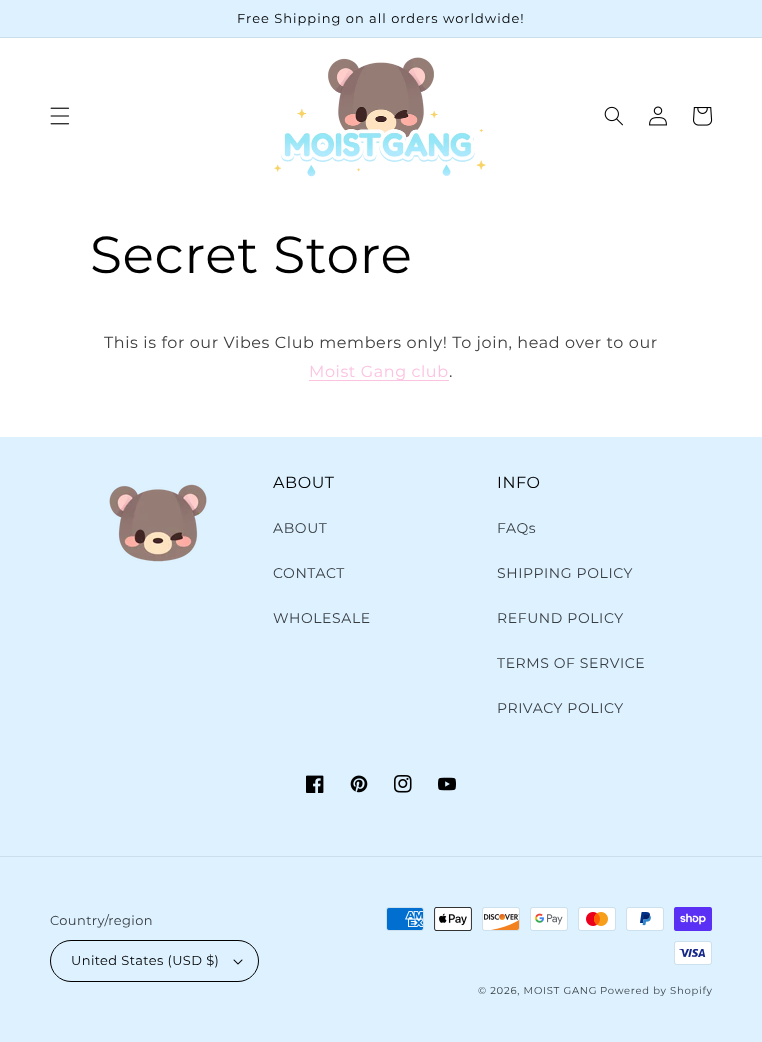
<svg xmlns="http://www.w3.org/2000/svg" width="762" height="1042">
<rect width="100%" height="100%" fill="#fff"/>
<rect width="762" height="37" fill="#ddf1ff"/>
<rect y="37" width="762" height="1" fill="#cbdeeb"/>
<text x="237" y="23" style="font-family:Montserrat;font-size:13px;letter-spacing:1px;fill:#000">Free Shipping on all orders worldwide!</text>
<image x="50" y="107" width="20" height="18" href="media/1.png"/>
<image x="274" y="57" width="212" height="120" href="media/2.png"/>
<image x="604" y="106" width="19" height="20" href="media/3.png"/>
<image x="649" y="106" width="18" height="20" href="media/4.png"/>
<image x="693" y="107" width="20" height="19" href="media/5.png"/>
<text x="90" y="273" style="font-family:Montserrat;font-size:52px;letter-spacing:0.6px;fill:#000">Secret Store</text>
<text x="104" y="348" style="font-family:Montserrat;font-size:16px;letter-spacing:0.6px;fill:#404040">This is for our Vibes Club members only! To join, head over to our</text>
<rect x="309" y="380" width="140" height="1" fill="#fcc3e1"/>
<text x="309" y="377" style="font-family:Montserrat;font-size:16px;letter-spacing:0.6px;fill:#fcc3e1">Moist Gang club</text>
<text x="449" y="377" style="font-family:Montserrat;font-size:16px;letter-spacing:0.6px;fill:#404040">.</text>
<rect y="437" width="762" height="605" fill="#ddf1ff"/>
<image x="109" y="484" width="98" height="78" href="media/6.png"/>
<text x="273" y="488" style="font-family:Montserrat;font-size:16px;letter-spacing:0.6px;fill:#000">ABOUT</text>
<text x="273" y="533" style="font-family:Montserrat;font-size:14px;letter-spacing:0.6px;fill:#373c40">ABOUT</text>
<text x="273" y="578" style="font-family:Montserrat;font-size:14px;letter-spacing:0.6px;fill:#373c40">CONTACT</text>
<text x="273" y="623" style="font-family:Montserrat;font-size:14px;letter-spacing:0.6px;fill:#373c40">WHOLESALE</text>
<text x="497" y="488" style="font-family:Montserrat;font-size:16px;letter-spacing:0.6px;fill:#000">INFO</text>
<text x="497" y="533" style="font-family:Montserrat;font-size:14px;letter-spacing:0.6px;fill:#373c40">FAQs</text>
<text x="497" y="578" style="font-family:Montserrat;font-size:14px;letter-spacing:0.6px;fill:#373c40">SHIPPING POLICY</text>
<text x="497" y="623" style="font-family:Montserrat;font-size:14px;letter-spacing:0.6px;fill:#373c40">REFUND POLICY</text>
<text x="497" y="668" style="font-family:Montserrat;font-size:14px;letter-spacing:0.6px;fill:#373c40">TERMS OF SERVICE</text>
<text x="497" y="713" style="font-family:Montserrat;font-size:14px;letter-spacing:0.6px;fill:#373c40">PRIVACY POLICY</text>
<image x="306" y="775" width="18" height="18" href="media/7.png"/>
<image x="350" y="775" width="18" height="18" href="media/8.png"/>
<image x="394" y="775" width="18" height="18" href="media/9.png"/>
<image x="438" y="777" width="18" height="14" href="media/10.png"/>
<rect y="856" width="762" height="1" fill="#cbdeeb"/>
<text x="50" y="925" style="font-family:Montserrat;font-size:13px;letter-spacing:0.4px;fill:#373c40">Country/region</text>
<image x="233" y="959" width="10" height="6" href="media/11.png"/>
<rect x="50.5" y="940.5" width="208" height="41" rx="20.5" fill="none" stroke="#000"/>
<text x="71" y="965" style="font-family:Montserrat;font-size:13px;letter-spacing:0.4px;fill:#000">United States (USD $)</text>
<image x="386" y="907" width="38" height="24" href="media/12.png"/>
<image x="434" y="907" width="38" height="24" href="media/13.png"/>
<image x="482" y="907" width="38" height="24" href="media/14.png"/>
<image x="530" y="907" width="38" height="24" href="media/15.png"/>
<image x="578" y="907" width="38" height="24" href="media/16.png"/>
<image x="626" y="907" width="38" height="24" href="media/17.png"/>
<image x="674" y="907" width="38" height="24" href="media/18.png"/>
<image x="674" y="941" width="38" height="24" href="media/19.png"/>
<text x="478" y="994" style="font-family:Montserrat;font-size:10px;letter-spacing:0.75px;fill:#373c40">© 2026, MOIST GANG</text>
<text x="600" y="994" style="font-family:Montserrat;font-size:10px;letter-spacing:0.75px;fill:#373c40">Powered by Shopify</text>
</svg>
